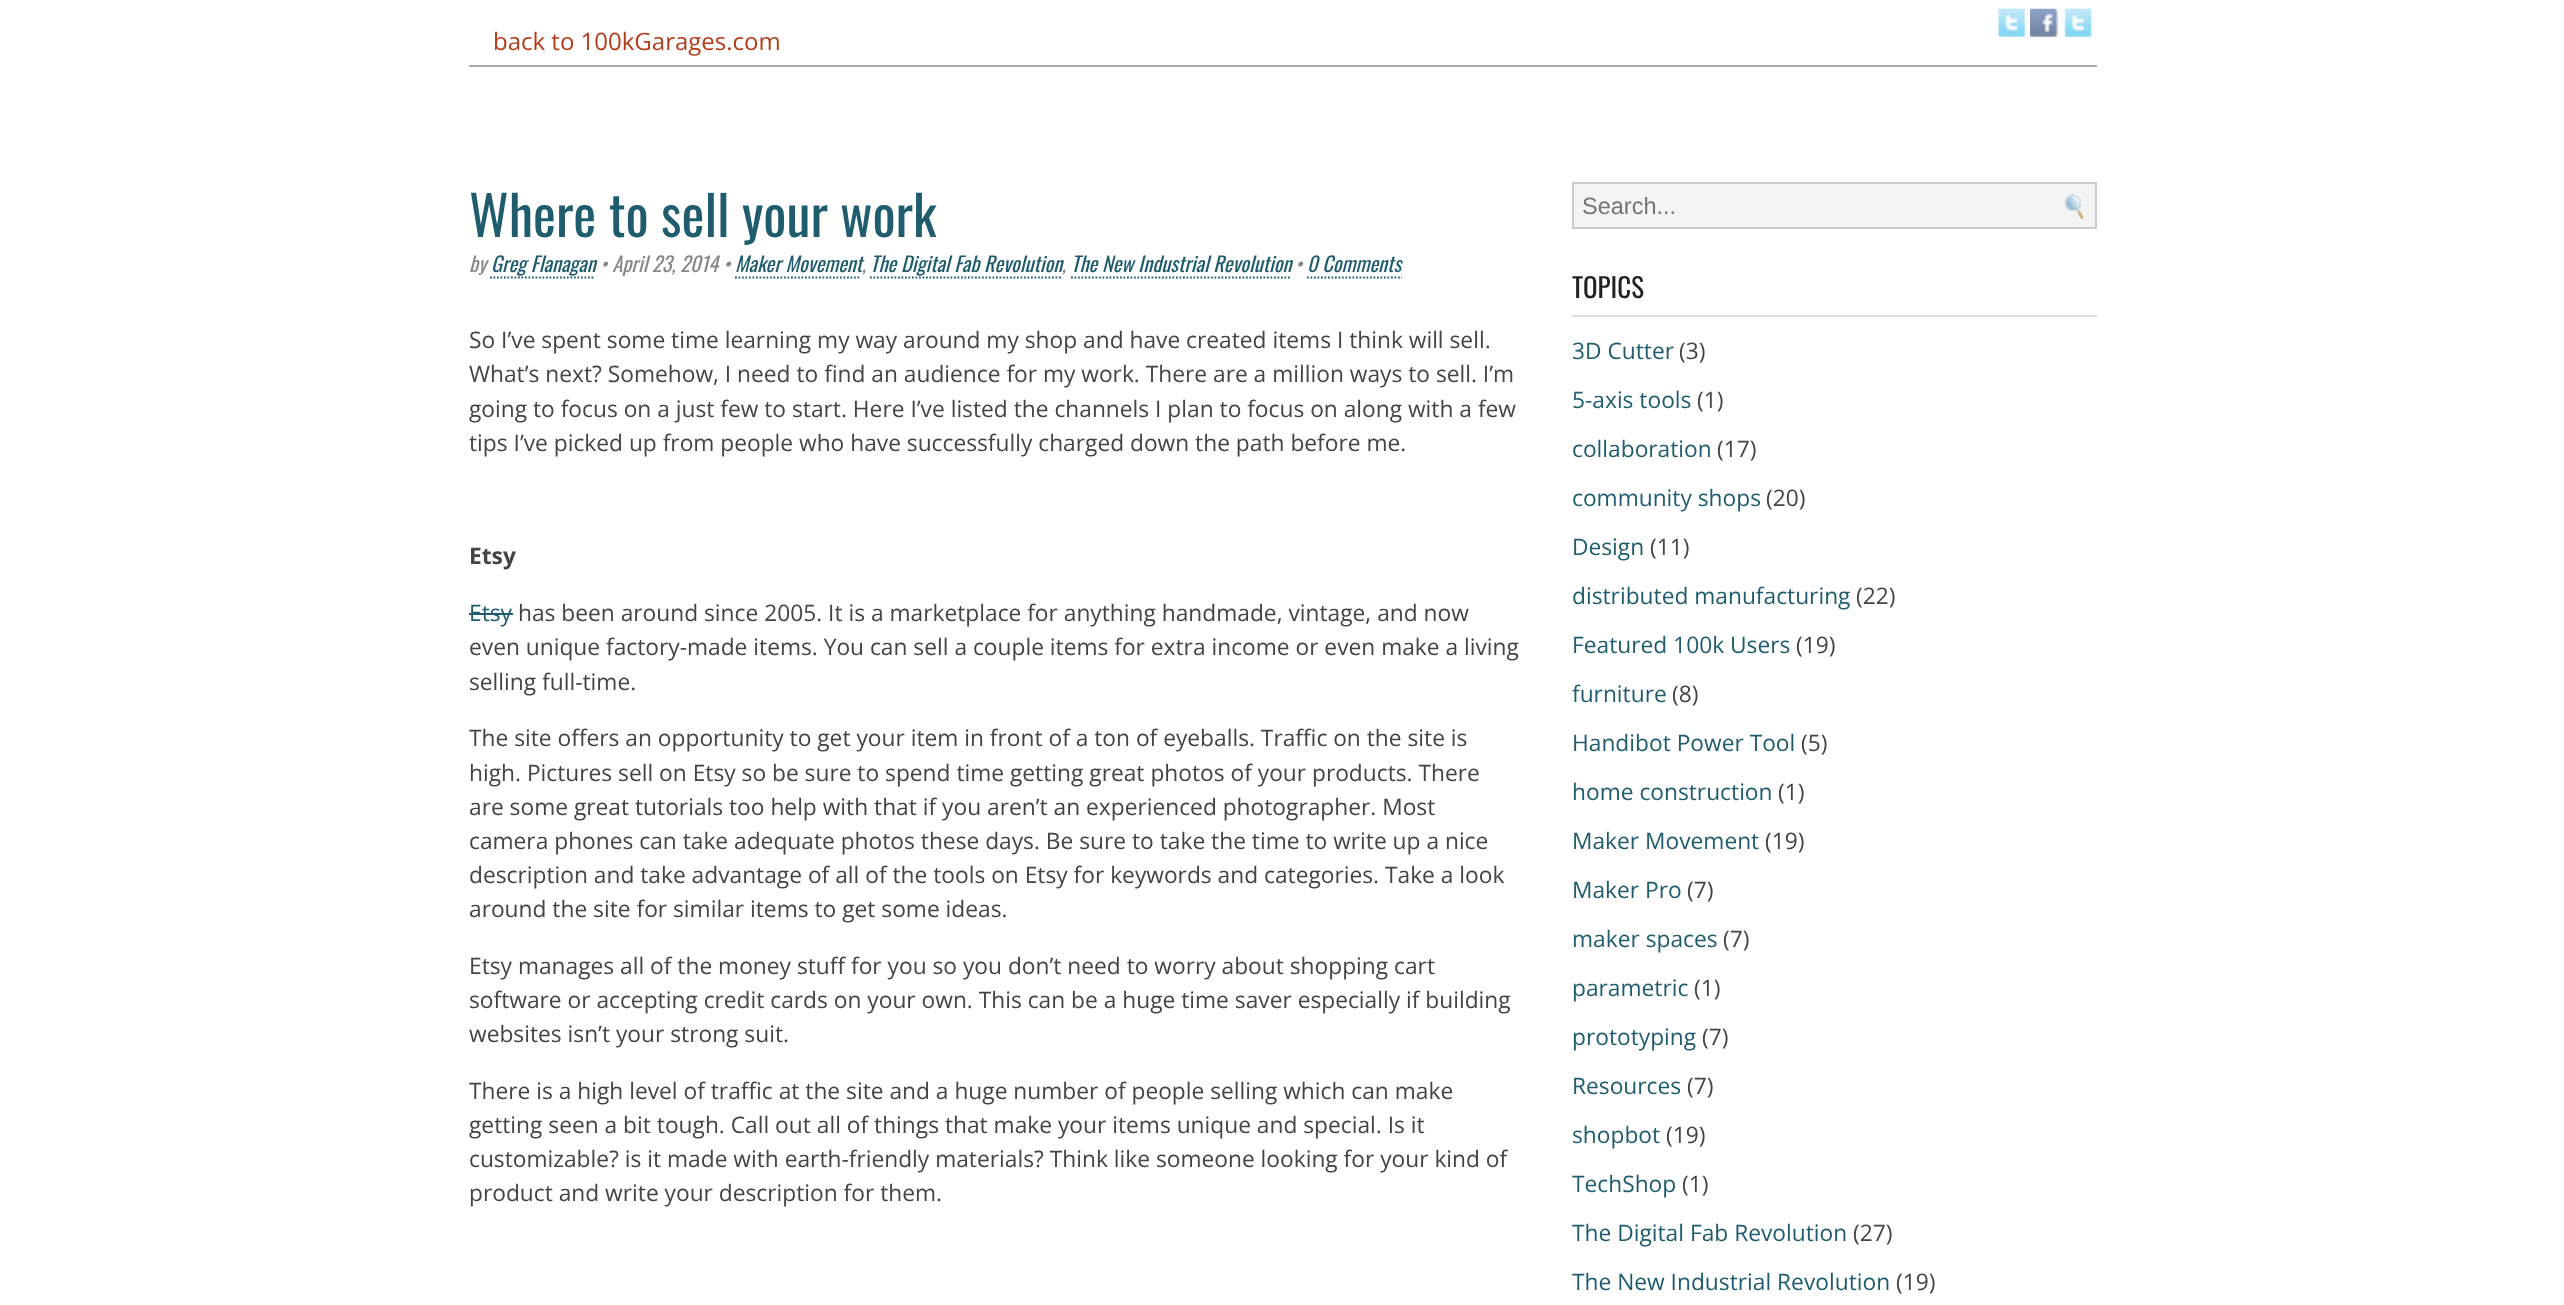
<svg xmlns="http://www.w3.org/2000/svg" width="2564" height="1305">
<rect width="100%" height="100%" fill="#fff"/>
<image x="1998" y="8" width="27" height="29" href="media/1.png"/>
<image x="2030" y="8" width="28" height="29" href="media/2.png"/>
<image x="2064" y="8" width="28" height="29" href="media/3.png"/>
<rect x="469" y="65" width="1628" height="2" fill="#aaa"/>
<text x="493" y="50" style="font-family:Open Sans;font-size:24px;fill:#b33d19">back to 100kGarages.com</text>
<text x="469" y="237" style="font-family:Oswald;font-size:54.5px;fill:#1f5c6e">Where to sell your work</text>
<text x="469" y="272" style="font-family:Oswald;font-size:20.5px;font-style:italic;fill:#888">by</text>
<text x="491" y="272" style="font-family:Oswald;font-size:20.5px;font-style:italic;fill:#1f5c6e">Greg Flanagan</text>
<path d="M490 277.5h105" fill="none" stroke="#1f5c6e" stroke-width="1.8" stroke-dasharray="1.75 1.75"/>
<text x="600" y="272" style="font-family:Oswald;font-size:20.5px;font-style:italic;fill:#888">• April 23, 2014 •</text>
<text x="735" y="272" style="font-family:Oswald;font-size:20.5px;font-style:italic;fill:#1f5c6e">Maker Movement</text>
<path d="M735 277.5h126" fill="none" stroke="#1f5c6e" stroke-width="1.8" stroke-dasharray="1.75 1.75"/>
<text x="870" y="272" style="font-family:Oswald;font-size:20.5px;font-style:italic;fill:#1f5c6e">The Digital Fab Revolution</text>
<path d="M870 277.5h192" fill="none" stroke="#1f5c6e" stroke-width="1.8" stroke-dasharray="1.75 1.75"/>
<text x="1071" y="272" style="font-family:Oswald;font-size:20.5px;font-style:italic;fill:#1f5c6e">The New Industrial Revolution</text>
<path d="M1071 277.5h219" fill="none" stroke="#1f5c6e" stroke-width="1.8" stroke-dasharray="1.75 1.75"/>
<text x="1295" y="272" style="font-family:Oswald;font-size:20.5px;font-style:italic;fill:#888">•</text>
<text x="1307" y="272" style="font-family:Oswald;font-size:20.5px;font-style:italic;fill:#1f5c6e">0 Comments</text>
<path d="M1307 277.5h95" fill="none" stroke="#1f5c6e" stroke-width="1.8" stroke-dasharray="1.75 1.75"/>
<text x="862" y="272" style="font-family:Oswald;font-size:20.5px;font-style:italic;fill:#888">,</text>
<text x="1062" y="272" style="font-family:Oswald;font-size:20.5px;font-style:italic;fill:#888">,</text>
<text x="469" y="348" style="font-family:Open Sans;font-size:22.75px;fill:#444">So I’ve spent some time learning my way around my shop and have created items I think will sell.</text>
<text x="469" y="382" style="font-family:Open Sans;font-size:22.75px;fill:#444">What’s next? Somehow, I need to find an audience for my work. There are a million ways to sell. I’m</text>
<text x="469" y="417" style="font-family:Open Sans;font-size:22.75px;fill:#444">going to focus on a just few to start. Here I’ve listed the channels I plan to focus on along with a few</text>
<text x="469" y="451" style="font-family:Open Sans;font-size:22.75px;fill:#444">tips I’ve picked up from people who have successfully charged down the path before me.</text>
<text x="469" y="564" style="font-family:Open Sans;font-size:22.75px;font-weight:bold;fill:#444">Etsy</text>
<text x="469" y="621" style="font-family:Open Sans;font-size:22.75px;fill:#1f5c6e">Etsy</text>
<rect x="469" y="613" width="44" height="2" fill="#1f5c6e"/>
<text x="518" y="621" style="font-family:Open Sans;font-size:22.75px;fill:#444">has been around since 2005. It is a marketplace for anything handmade, vintage, and now</text>
<text x="469" y="655" style="font-family:Open Sans;font-size:22.75px;fill:#444">even unique factory-made items. You can sell a couple items for extra income or even make a living</text>
<text x="469" y="690" style="font-family:Open Sans;font-size:22.75px;fill:#444">selling full-time.</text>
<text x="469" y="746" style="font-family:Open Sans;font-size:22.75px;fill:#444">The site offers an opportunity to get your item in front of a ton of eyeballs. Traffic on the site is</text>
<text x="469" y="781" style="font-family:Open Sans;font-size:22.75px;fill:#444">high. Pictures sell on Etsy so be sure to spend time getting great photos of your products. There</text>
<text x="469" y="815" style="font-family:Open Sans;font-size:22.75px;fill:#444">are some great tutorials too help with that if you aren’t an experienced photographer. Most</text>
<text x="469" y="849" style="font-family:Open Sans;font-size:22.75px;fill:#444">camera phones can take adequate photos these days. Be sure to take the time to write up a nice</text>
<text x="469" y="883" style="font-family:Open Sans;font-size:22.75px;fill:#444">description and take advantage of all of the tools on Etsy for keywords and categories. Take a look</text>
<text x="469" y="917" style="font-family:Open Sans;font-size:22.75px;fill:#444">around the site for similar items to get some ideas.</text>
<text x="469" y="974" style="font-family:Open Sans;font-size:22.75px;fill:#444">Etsy manages all of the money stuff for you so you don’t need to worry about shopping cart</text>
<text x="469" y="1008" style="font-family:Open Sans;font-size:22.75px;fill:#444">software or accepting credit cards on your own. This can be a huge time saver especially if building</text>
<text x="469" y="1042" style="font-family:Open Sans;font-size:22.75px;fill:#444">websites isn’t your strong suit.</text>
<text x="469" y="1099" style="font-family:Open Sans;font-size:22.75px;fill:#444">There is a high level of traffic at the site and a huge number of people selling which can make</text>
<text x="469" y="1133" style="font-family:Open Sans;font-size:22.75px;fill:#444">getting seen a bit tough. Call out all of things that make your items unique and special. Is it</text>
<text x="469" y="1167" style="font-family:Open Sans;font-size:22.75px;fill:#444">customizable? is it made with earth-friendly materials? Think like someone looking for your kind of</text>
<text x="469" y="1201" style="font-family:Open Sans;font-size:22.75px;fill:#444">product and write your description for them.</text>
<rect x="1574" y="184" width="521" height="43" fill="#f4f4f4"/>
<image x="2064" y="194" width="21" height="25" href="media/4.png"/>
<rect x="1573" y="183" width="523" height="45" fill="none" stroke="#ccc" stroke-width="2"/>
<text x="1582" y="214" style="font-family:Liberation Sans;font-size:23.5px;fill:#757575">Search...</text>
<rect x="1572" y="315" width="525" height="2" fill="#ddd"/>
<text x="1572" y="298" style="font-family:Oswald;font-size:27px;fill:#222">TOPICS</text>
<text x="1572" y="359" style="font-family:Open Sans;font-size:22.75px;fill:#1f5c6e">3D Cutter</text>
<text x="1679" y="359" style="font-family:Open Sans;font-size:22.75px;fill:#444">(3)</text>
<text x="1572" y="408" style="font-family:Open Sans;font-size:22.75px;fill:#1f5c6e">5-axis tools</text>
<text x="1697" y="408" style="font-family:Open Sans;font-size:22.75px;fill:#444">(1)</text>
<text x="1572" y="457" style="font-family:Open Sans;font-size:22.75px;fill:#1f5c6e">collaboration</text>
<text x="1717" y="457" style="font-family:Open Sans;font-size:22.75px;fill:#444">(17)</text>
<text x="1572" y="506" style="font-family:Open Sans;font-size:22.75px;fill:#1f5c6e">community shops</text>
<text x="1766" y="506" style="font-family:Open Sans;font-size:22.75px;fill:#444">(20)</text>
<text x="1572" y="555" style="font-family:Open Sans;font-size:22.75px;fill:#1f5c6e">Design</text>
<text x="1650" y="555" style="font-family:Open Sans;font-size:22.75px;fill:#444">(11)</text>
<text x="1572" y="604" style="font-family:Open Sans;font-size:22.75px;fill:#1f5c6e">distributed manufacturing</text>
<text x="1856" y="604" style="font-family:Open Sans;font-size:22.75px;fill:#444">(22)</text>
<text x="1572" y="653" style="font-family:Open Sans;font-size:22.75px;fill:#1f5c6e">Featured 100k Users</text>
<text x="1796" y="653" style="font-family:Open Sans;font-size:22.75px;fill:#444">(19)</text>
<text x="1572" y="702" style="font-family:Open Sans;font-size:22.75px;fill:#1f5c6e">furniture</text>
<text x="1672" y="702" style="font-family:Open Sans;font-size:22.75px;fill:#444">(8)</text>
<text x="1572" y="751" style="font-family:Open Sans;font-size:22.75px;fill:#1f5c6e">Handibot Power Tool</text>
<text x="1801" y="751" style="font-family:Open Sans;font-size:22.75px;fill:#444">(5)</text>
<text x="1572" y="800" style="font-family:Open Sans;font-size:22.75px;fill:#1f5c6e">home construction</text>
<text x="1778" y="800" style="font-family:Open Sans;font-size:22.75px;fill:#444">(1)</text>
<text x="1572" y="849" style="font-family:Open Sans;font-size:22.75px;fill:#1f5c6e">Maker Movement</text>
<text x="1765" y="849" style="font-family:Open Sans;font-size:22.75px;fill:#444">(19)</text>
<text x="1572" y="898" style="font-family:Open Sans;font-size:22.75px;fill:#1f5c6e">Maker Pro</text>
<text x="1687" y="898" style="font-family:Open Sans;font-size:22.75px;fill:#444">(7)</text>
<text x="1572" y="947" style="font-family:Open Sans;font-size:22.75px;fill:#1f5c6e">maker spaces</text>
<text x="1723" y="947" style="font-family:Open Sans;font-size:22.75px;fill:#444">(7)</text>
<text x="1572" y="996" style="font-family:Open Sans;font-size:22.75px;fill:#1f5c6e">parametric</text>
<text x="1694" y="996" style="font-family:Open Sans;font-size:22.75px;fill:#444">(1)</text>
<text x="1572" y="1045" style="font-family:Open Sans;font-size:22.75px;fill:#1f5c6e">prototyping</text>
<text x="1702" y="1045" style="font-family:Open Sans;font-size:22.75px;fill:#444">(7)</text>
<text x="1572" y="1094" style="font-family:Open Sans;font-size:22.75px;fill:#1f5c6e">Resources</text>
<text x="1687" y="1094" style="font-family:Open Sans;font-size:22.75px;fill:#444">(7)</text>
<text x="1572" y="1143" style="font-family:Open Sans;font-size:22.75px;fill:#1f5c6e">shopbot</text>
<text x="1666" y="1143" style="font-family:Open Sans;font-size:22.75px;fill:#444">(19)</text>
<text x="1572" y="1192" style="font-family:Open Sans;font-size:22.75px;fill:#1f5c6e">TechShop</text>
<text x="1682" y="1192" style="font-family:Open Sans;font-size:22.75px;fill:#444">(1)</text>
<text x="1572" y="1241" style="font-family:Open Sans;font-size:22.75px;fill:#1f5c6e">The Digital Fab Revolution</text>
<text x="1853" y="1241" style="font-family:Open Sans;font-size:22.75px;fill:#444">(27)</text>
<text x="1572" y="1290" style="font-family:Open Sans;font-size:22.75px;fill:#1f5c6e">The New Industrial Revolution</text>
<text x="1896" y="1290" style="font-family:Open Sans;font-size:22.75px;fill:#444">(19)</text>
</svg>
